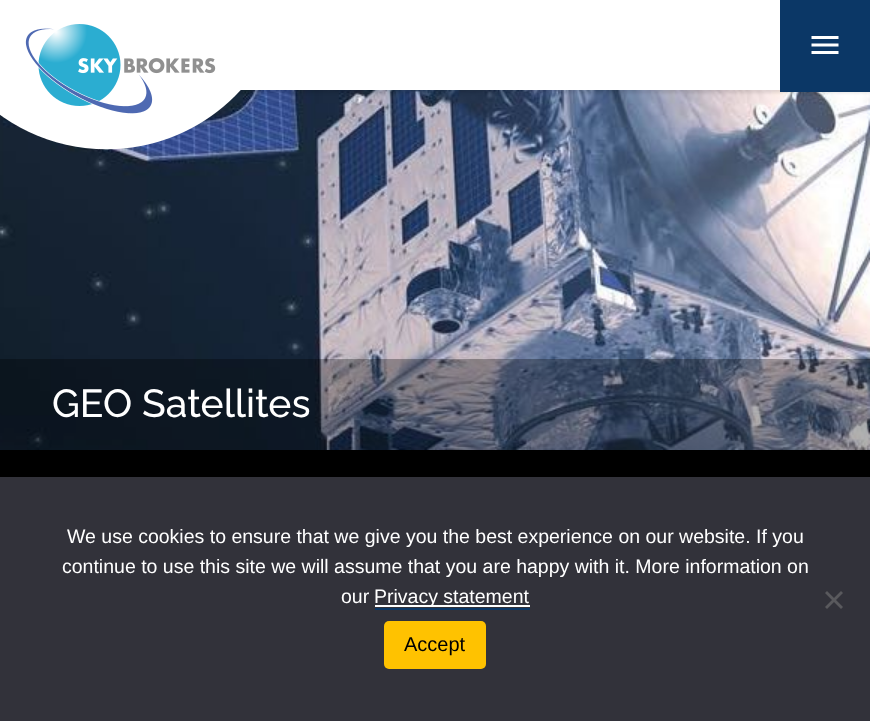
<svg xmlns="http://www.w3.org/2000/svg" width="870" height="721">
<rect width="100%" height="100%" fill="#000"/>
<image x="0" y="90" width="870" height="360" href="media/3.png"/>
<rect y="3" width="870" height="90" fill="#0000001a" filter="blur(1.5px)"/>
<rect x="780" width="90" height="92" fill="#0b3766"/>
<image x="811" y="36" width="28" height="18" href="media/1.png"/>
<rect width="780" height="90" fill="#fff"/>
<image x="0" y="24" width="241" height="126" href="media/2.png"/>
<rect y="359" width="870" height="91" fill="#0000004d"/>
<text x="52" y="417" style="font-family:Raleway;font-size:39px;font-weight:500;fill:#fff">GEO Satellites</text>
<rect y="477" width="870" height="244" fill="#32323a"/>
<text x="67" y="543" style="font-family:Liberation Sans;font-size:19.5px;fill:#fff">We use cookies to ensure that we give you the best experience on our website. If you</text>
<text x="62" y="573" style="font-family:Liberation Sans;font-size:19.5px;fill:#fff">continue to use this site we will assume that you are happy with it. More information on</text>
<text x="341" y="603" style="font-family:Liberation Sans;font-size:19.5px;fill:#fff">our</text>
<rect x="375" y="605" width="155" height="2" fill="#fff"/>
<text x="374" y="603" style="font-family:Liberation Sans;font-size:19.5px;fill:#fff">Privacy statement</text>
<rect x="375" y="608" width="155" height="2" fill="#0b3766"/>
<path d="M841 591l2 2l-16 16l-2-2z" fill="#59595d"/>
<path d="M825 593l2-2l16 16l-2 2z" fill="#59595d"/>
<rect x="384" y="621" width="102" height="48" rx="5" fill="#ffc200"/>
<text x="404" y="651" style="font-family:Liberation Sans;font-size:20px;fill:#000">Accept</text>
</svg>
